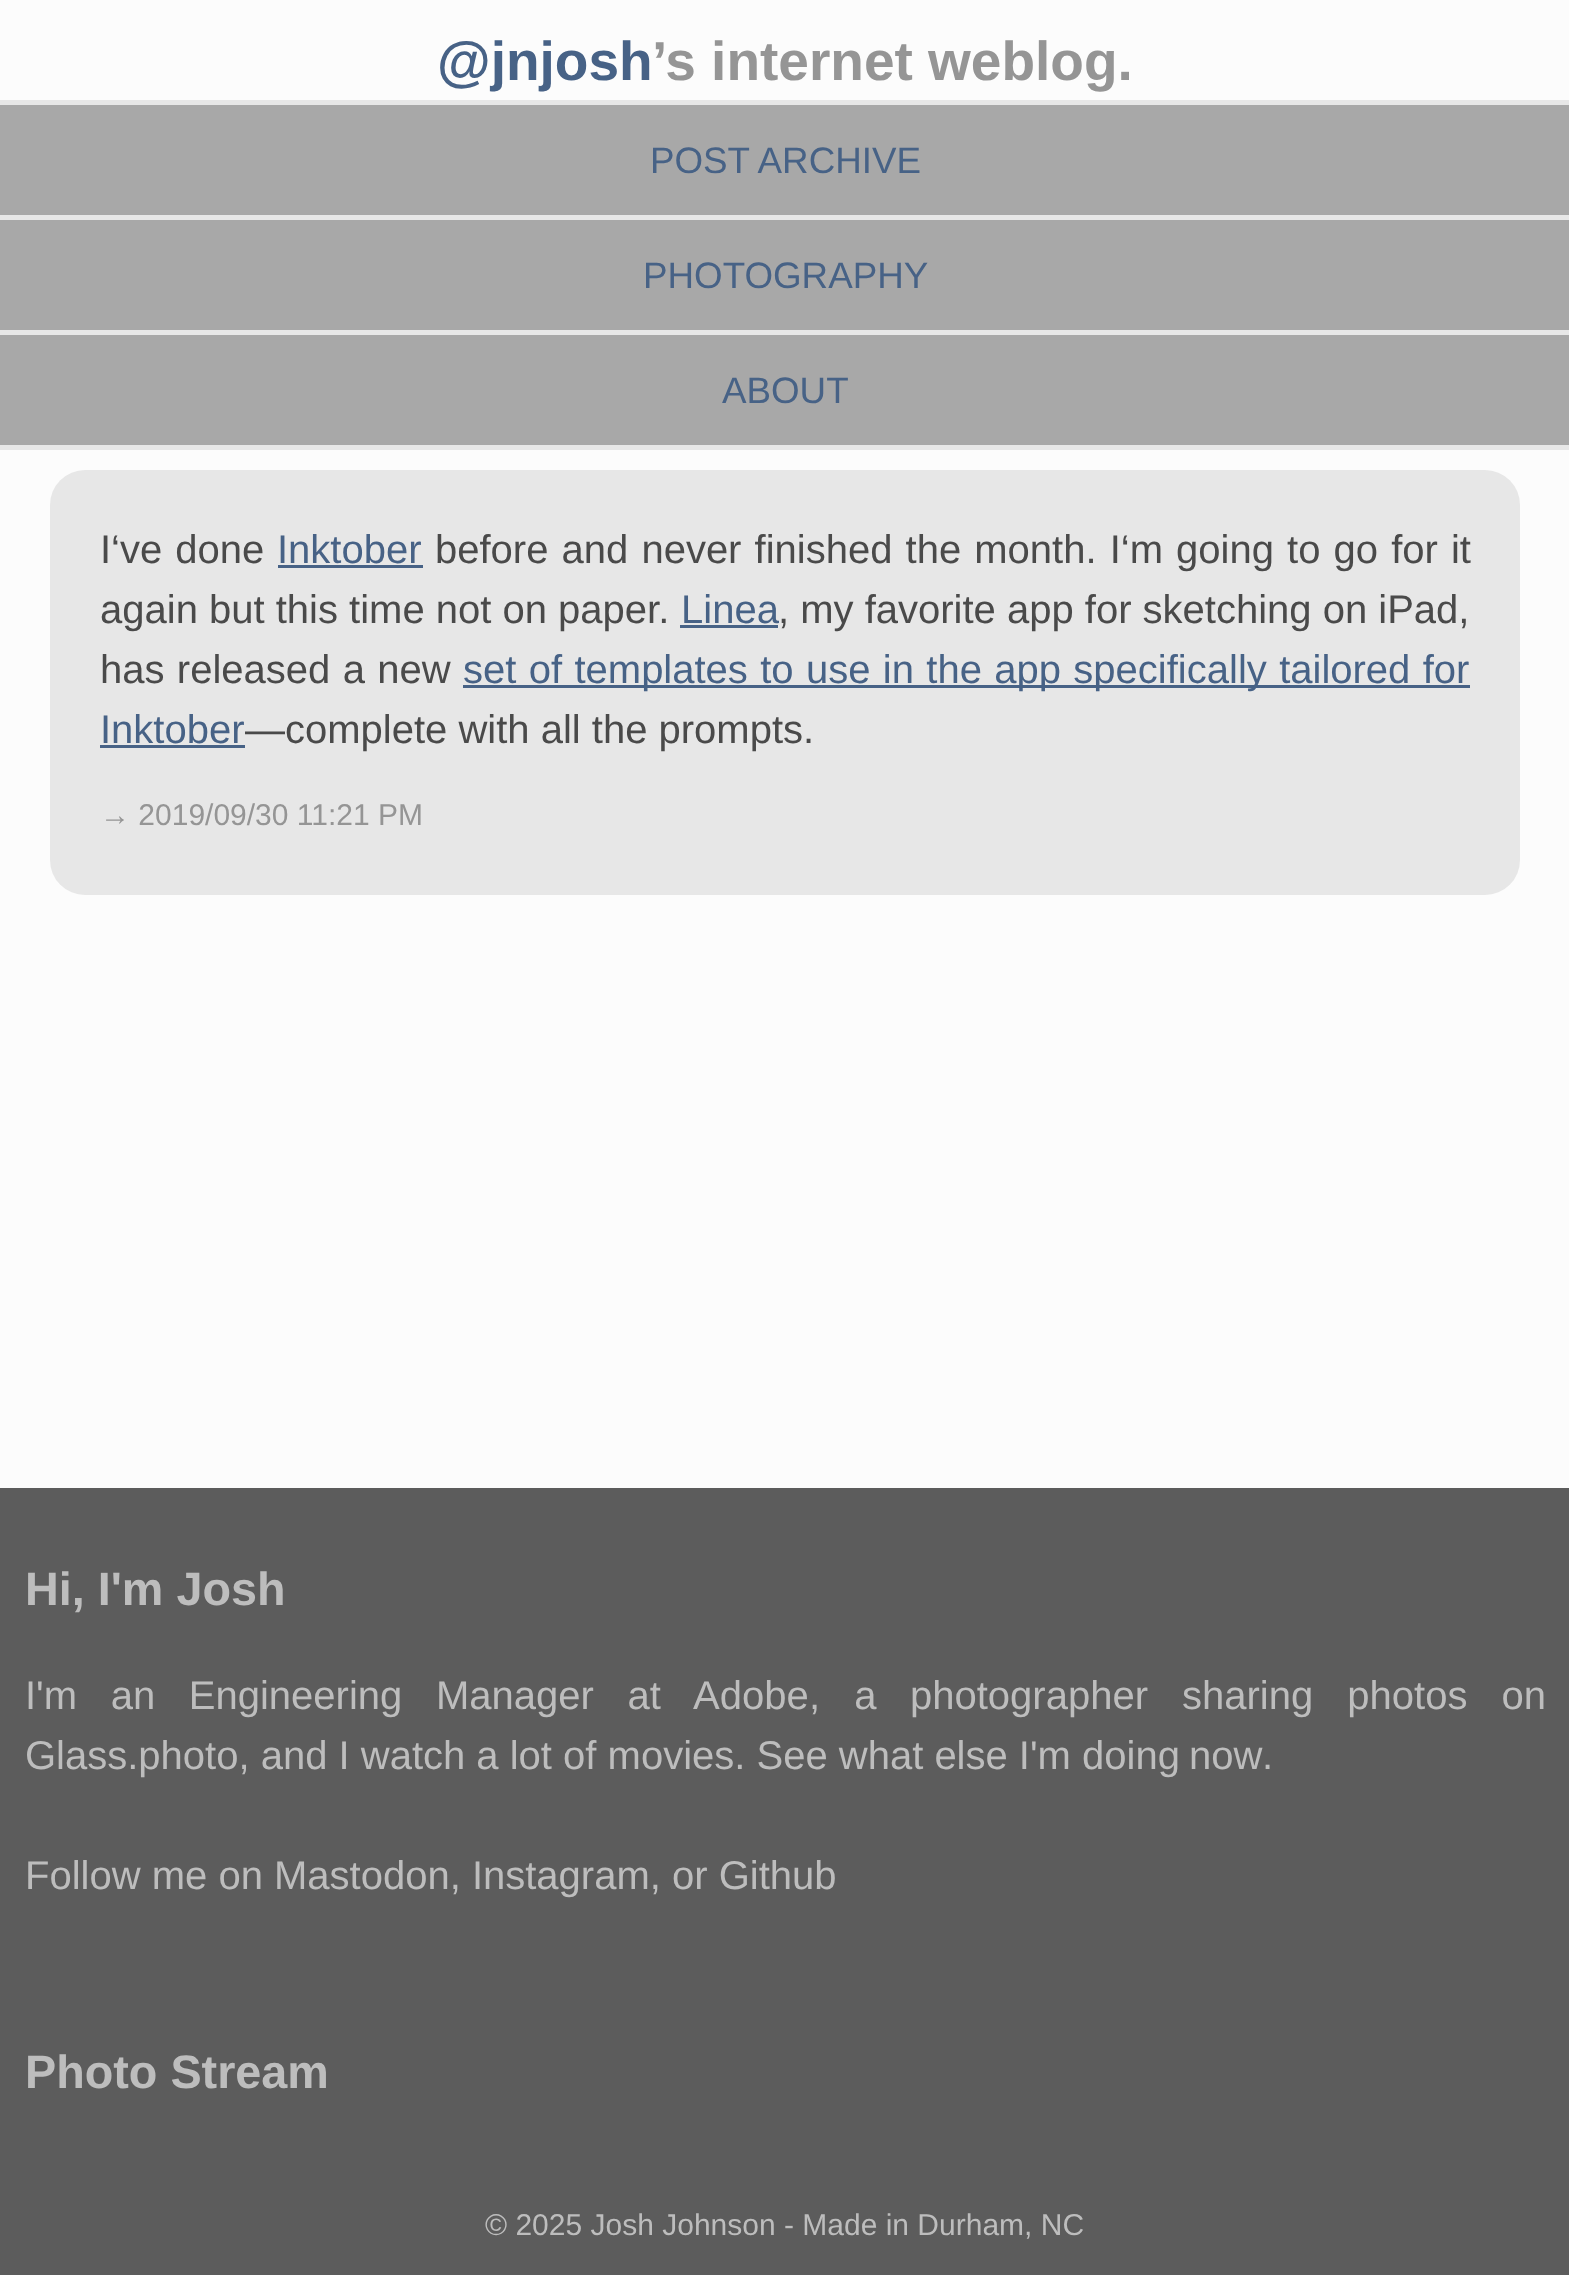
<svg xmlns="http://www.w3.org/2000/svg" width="1569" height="2275">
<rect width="100%" height="100%" fill="#fcfcfc"/>
<text x="437" y="80" style="font-family:Liberation Sans;font-size:55px;font-weight:bold;fill:#476286">@jnjosh</text>
<text x="652" y="80" style="font-family:Liberation Sans;font-size:55px;font-weight:bold;fill:#959595">’s internet weblog.</text>
<rect y="100" width="1569" height="5" fill="#e7e7e7"/>
<rect y="105" width="1569" height="110" fill="#a8a8a8"/>
<rect y="215" width="1569" height="5" fill="#e7e7e7"/>
<text x="650" y="173" style="font-family:Liberation Sans;font-size:36.75px;fill:#476286">POST ARCHIVE</text>
<rect y="220" width="1569" height="110" fill="#a8a8a8"/>
<rect y="330" width="1569" height="5" fill="#e7e7e7"/>
<text x="643" y="288" style="font-family:Liberation Sans;font-size:36.75px;fill:#476286">PHOTOGRAPHY</text>
<rect y="335" width="1569" height="110" fill="#a8a8a8"/>
<rect y="445" width="1569" height="5" fill="#e7e7e7"/>
<text x="722" y="403" style="font-family:Liberation Sans;font-size:36.75px;fill:#476286">ABOUT</text>
<rect x="50" y="470" width="1470" height="425" rx="35" fill="#e7e7e7"/>
<text x="100" y="563" word-spacing="2" style="font-family:Liberation Sans;font-size:40px;fill:#4a4a4a">I‘ve done</text>
<text x="277" y="563" style="font-family:Liberation Sans;font-size:40px;fill:#476286">Inktober</text>
<rect x="278" y="565" width="145" height="3" fill="#476286"/>
<text x="435" y="563" word-spacing="2" style="font-family:Liberation Sans;font-size:40px;fill:#4a4a4a">before and never finished the month. I‘m going to go for it</text>
<text x="100" y="623" style="font-family:Liberation Sans;font-size:40px;fill:#4a4a4a">again but this time not on paper.</text>
<text x="681" y="623" style="font-family:Liberation Sans;font-size:40px;fill:#476286">Linea</text>
<rect x="680" y="625" width="98" height="3" fill="#476286"/>
<text x="778" y="623" style="font-family:Liberation Sans;font-size:40px;fill:#4a4a4a">, my favorite app for sketching on iPad,</text>
<text x="100" y="683" word-spacing="1.25" style="font-family:Liberation Sans;font-size:40px;fill:#4a4a4a">has released a new</text>
<rect x="463" y="685" width="1007" height="3" fill="#476286"/>
<text x="463" y="683" word-spacing="1.25" style="font-family:Liberation Sans;font-size:40px;fill:#476286">set of templates to use in the app specifically tailored for</text>
<text x="100" y="743" style="font-family:Liberation Sans;font-size:40px;fill:#476286">Inktober</text>
<rect x="100" y="745" width="145" height="3" fill="#476286"/>
<text x="245" y="743" style="font-family:Liberation Sans;font-size:40px;fill:#4a4a4a">—complete with all the prompts.</text>
<text x="100" y="825" style="font-family:Liberation Sans;font-size:30px;fill:#959595">→ 2019/09/30 11:21 PM</text>
<rect y="1488" width="1569" height="787" fill="#5c5c5c"/>
<text x="25" y="1605" style="font-family:Liberation Sans;font-size:46.75px;font-weight:bold;fill:#bdbdbd">Hi, I'm Josh</text>
<text x="25" y="1709" word-spacing="22.5" style="font-family:Liberation Sans;font-size:40px;fill:#bdbdbd">I'm an Engineering Manager at</text>
<text x="693" y="1709" style="font-family:Liberation Sans;font-size:40px;fill:#bdbdbd">Adobe</text>
<text x="809" y="1709" word-spacing="23" style="font-family:Liberation Sans;font-size:40px;fill:#bdbdbd">, a</text>
<text x="910" y="1709" style="font-family:Liberation Sans;font-size:40px;fill:#bdbdbd">photographer</text>
<text x="1182" y="1709" word-spacing="23" style="font-family:Liberation Sans;font-size:40px;fill:#bdbdbd">sharing photos on</text>
<text x="25" y="1769" style="font-family:Liberation Sans;font-size:40px;fill:#bdbdbd">Glass.photo, and I watch a lot of movies. See what else I'm</text>
<text x="1082" y="1769" word-spacing="-2" style="font-family:Liberation Sans;font-size:40px;fill:#bdbdbd">doing now</text>
<text x="1262" y="1769" style="font-family:Liberation Sans;font-size:40px;fill:#bdbdbd">.</text>
<text x="25" y="1889" style="font-family:Liberation Sans;font-size:40px;fill:#bdbdbd">Follow me on Mastodon, Instagram, or Github</text>
<text x="25" y="2088" style="font-family:Liberation Sans;font-size:46.75px;font-weight:bold;fill:#bdbdbd">Photo Stream</text>
<text x="485" y="2235" style="font-family:Liberation Sans;font-size:30px;fill:#bdbdbd">© 2025 Josh Johnson - Made in Durham, NC</text>
</svg>
